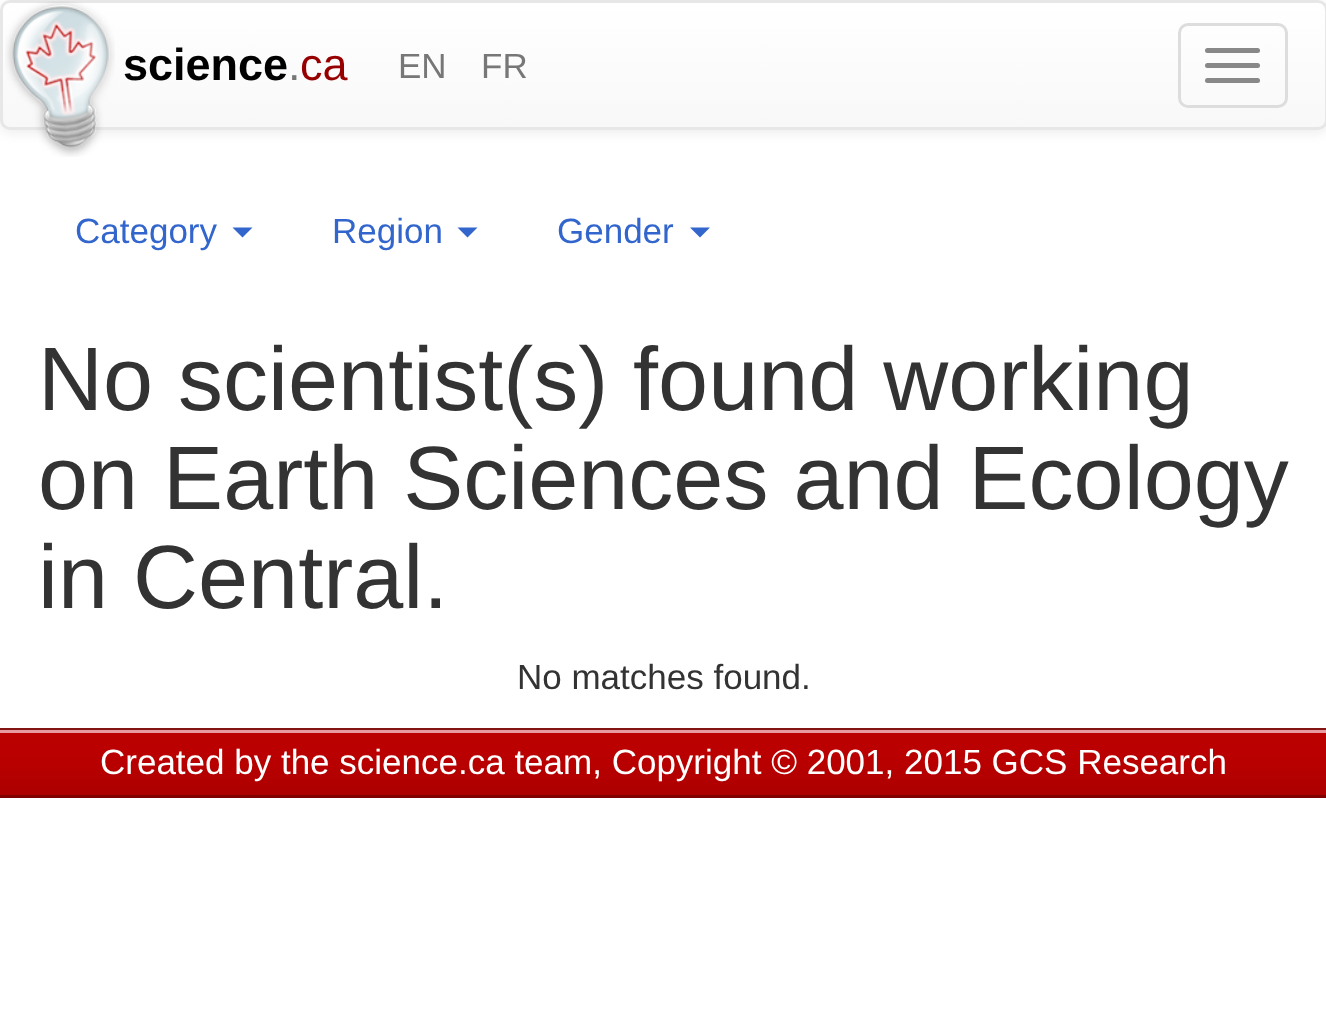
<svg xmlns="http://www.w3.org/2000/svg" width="1326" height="1019">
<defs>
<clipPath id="clip1"><rect width="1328" height="130" rx="10"/></clipPath>
<linearGradient id="g1" gradientUnits="userSpaceOnUse" x1="664" y1="2.5" x2="664" y2="128"><stop offset="0" stop-color="#fff"/><stop offset="1" stop-color="#f8f8f8"/></linearGradient>
<linearGradient id="g2" gradientUnits="userSpaceOnUse" x1="664" y1="730" x2="664" y2="795"><stop offset="0" stop-color="#bc0000"/><stop offset="0.5" stop-color="#b90000"/><stop offset="1" stop-color="#ac0000"/></linearGradient>
</defs>
<rect width="100%" height="100%" fill="#fff"/>
<rect y="3" width="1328" height="130" rx="10" fill="#00000012" filter="blur(6px)"/>
<g clip-path="url(#clip1)">
<rect y="3" width="1326" height="125" fill="url(#g1)"/>
</g>
<rect x="1.5" y="1.5" width="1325" height="127" rx="8.5" fill="none" stroke="#e7e7e7" stroke-width="3"/>
<image x="5" y="1" width="110" height="156" href="media/1.png"/>
<text x="123" y="80" style="font-family:Liberation Sans;font-size:45px;font-weight:bold;fill:#010101">science</text>
<text x="288" y="80" style="font-family:Liberation Sans;font-size:45px;fill:#777">.</text>
<text x="300" y="80" style="font-family:Liberation Sans;font-size:45px;fill:#960000">ca</text>
<text x="398" y="78" style="font-family:Liberation Sans;font-size:35px;fill:#777">EN</text>
<text x="481" y="78" style="font-family:Liberation Sans;font-size:35px;fill:#777">FR</text>
<rect x="1179.5" y="24.5" width="107" height="82" rx="8.5" fill="none" stroke="#ddd" stroke-width="3"/>
<rect x="1205" y="48" width="55" height="5" rx="2.5" fill="#888"/>
<rect x="1205" y="63" width="55" height="5" rx="2.5" fill="#888"/>
<rect x="1205" y="78" width="55" height="5" rx="2.5" fill="#888"/>
<text x="75" y="243" style="font-family:Liberation Sans;font-size:35px;fill:#36c">Category</text>
<path d="M232.5 227.5h20l-10 10z" fill="#36c"/>
<text x="332" y="243" style="font-family:Liberation Sans;font-size:35px;fill:#36c">Region</text>
<path d="M457.5 227.5h20l-10 10z" fill="#36c"/>
<text x="557" y="243" style="font-family:Liberation Sans;font-size:35px;fill:#36c">Gender</text>
<path d="M690 227.5h20l-10 10z" fill="#36c"/>
<text x="38" y="410" style="font-family:Liberation Sans;font-size:90px;fill:#333">No scientist(s) found working</text>
<text x="38" y="509" style="font-family:Liberation Sans;font-size:90px;fill:#333">on Earth Sciences and Ecology</text>
<text x="38" y="608" style="font-family:Liberation Sans;font-size:90px;fill:#333">in Central.</text>
<text x="517" y="689" style="font-family:Liberation Sans;font-size:35px;fill:#333">No matches found.</text>
<rect y="733" width="1326" height="62" fill="url(#g2)"/>
<rect y="728" width="1326" height="2" fill="#811511"/>
<rect y="795" width="1326" height="3" fill="#810000"/>
<rect y="730" width="1326" height="3" fill="#e89b9e"/>
<text x="100" y="774" style="font-family:Liberation Sans;font-size:35px;fill:#fff">Created by the science.ca team, Copyright © 2001, 2015 GCS Research</text>
</svg>
